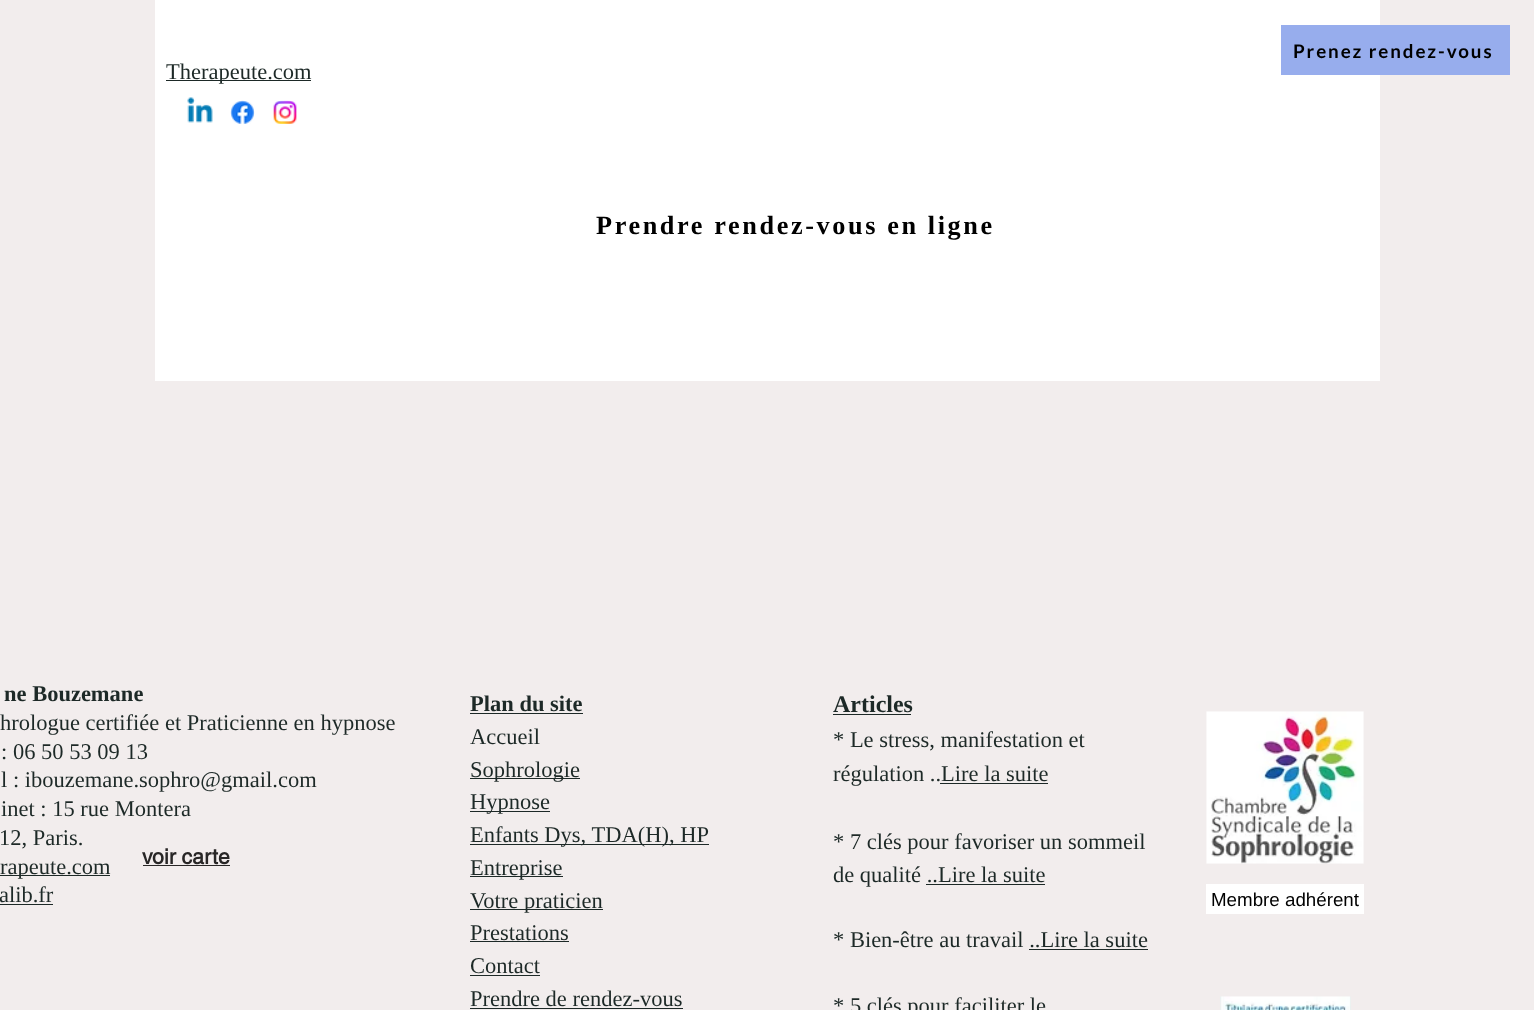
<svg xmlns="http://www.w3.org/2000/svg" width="1534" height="1010">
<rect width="100%" height="100%" fill="#f2eded"/>
<rect x="155" width="1225" height="381" fill="#fff"/>
<rect x="1281" y="25" width="229" height="50" fill="#97aded"/>
<text x="1293" y="58" style="font-family:Lato;font-size:18.75px;font-weight:bold;letter-spacing:1.9px;fill:#000">Prenez rendez-vous</text>
<rect x="166" y="80" width="145" height="1" fill="#1d2927"/>
<text x="166" y="79" style="font-family:Liberation Serif;font-size:22.5px;fill:#1d2927">Therapeute.com</text>
<image x="187" y="97" width="26" height="26" href="media/1.png"/>
<image x="230" y="100" width="25" height="24" href="media/2.png"/>
<image x="273" y="100" width="24" height="24" href="media/3.png"/>
<text x="596" y="234" style="font-family:Liberation Serif;font-size:26.25px;font-weight:bold;letter-spacing:2.6px;fill:#000">Prendre rendez-vous en ligne</text>
<text x="4" y="701" style="font-family:Liberation Serif;font-size:22.5px;font-weight:bold;fill:#1d2927">ne Bouzemane</text>
<text x="0" y="730" style="font-family:Liberation Serif;font-size:22.5px;fill:#1d2927">hrologue certifiée et Praticienne en hypnose</text>
<text x="1" y="759" style="font-family:Liberation Serif;font-size:22.5px;fill:#1d2927">: 06 50 53 09 13</text>
<text x="1" y="787" style="font-family:Liberation Serif;font-size:22.5px;fill:#1d2927">l : ibouzemane.sophro@gmail.com</text>
<text x="1" y="816" style="font-family:Liberation Serif;font-size:22.5px;fill:#1d2927">inet : 15 rue Montera</text>
<text x="-1" y="845" style="font-family:Liberation Serif;font-size:22.5px;fill:#1d2927">12, Paris.</text>
<rect y="875" width="110" height="1" fill="#1d2927"/>
<text x="0" y="874" style="font-family:Liberation Serif;font-size:22.5px;fill:#1d2927">rapeute.com</text>
<text x="-1" y="902" style="font-family:Liberation Serif;font-size:22.5px;fill:#1d2927">alib.fr</text>
<rect y="904" width="53" height="1" fill="#1d2927"/>
<text x="470" y="711" style="font-family:Liberation Serif;font-size:22.5px;font-weight:bold;fill:#1d2927">Plan du site</text>
<rect x="470" y="713" width="113" height="1" fill="#1d2927"/>
<text x="470" y="744" style="font-family:Liberation Serif;font-size:22.5px;fill:#1d2927">Accueil</text>
<rect x="470" y="778" width="110" height="1" fill="#1d2927"/>
<text x="470" y="777" style="font-family:Liberation Serif;font-size:22.5px;fill:#1d2927">Sophrologie</text>
<rect x="470" y="811" width="80" height="1" fill="#1d2927"/>
<text x="470" y="809" style="font-family:Liberation Serif;font-size:22.5px;fill:#1d2927">Hypnose</text>
<rect x="470" y="844" width="239" height="1" fill="#1d2927"/>
<text x="470" y="842" style="font-family:Liberation Serif;font-size:22.5px;fill:#1d2927">Enfants Dys, TDA(H), HP</text>
<rect x="470" y="876" width="93" height="1" fill="#1d2927"/>
<text x="470" y="875" style="font-family:Liberation Serif;font-size:22.5px;fill:#1d2927">Entreprise</text>
<rect x="470" y="909" width="133" height="1" fill="#1d2927"/>
<text x="470" y="908" style="font-family:Liberation Serif;font-size:22.5px;fill:#1d2927">Votre praticien</text>
<text x="470" y="940" style="font-family:Liberation Serif;font-size:22.5px;fill:#1d2927">Prestations</text>
<rect x="470" y="941" width="99" height="1" fill="#1d2927"/>
<text x="470" y="973" style="font-family:Liberation Serif;font-size:22.5px;fill:#1d2927">Contact</text>
<rect x="470" y="975" width="70" height="1" fill="#1d2927"/>
<text x="470" y="1006" style="font-family:Liberation Serif;font-size:22.5px;fill:#1d2927">Prendre de rendez-vous</text>
<rect x="470" y="1008" width="213" height="1" fill="#1d2927"/>
<text x="833" y="712" style="font-family:Liberation Serif;font-size:24px;font-weight:bold;fill:#1d2927">Articles</text>
<rect x="833" y="714" width="78" height="1" fill="#1d2927"/>
<text x="833" y="747" style="font-family:Liberation Serif;font-size:22.5px;fill:#1d2927">* Le stress, manifestation et</text>
<text x="833" y="781" style="font-family:Liberation Serif;font-size:22.5px;fill:#1d2927">régulation ..Lire la suite</text>
<rect x="940" y="783" width="108" height="1" fill="#1d2927"/>
<text x="833" y="849" style="font-family:Liberation Serif;font-size:22.5px;fill:#1d2927">* 7 clés pour favoriser un sommeil</text>
<text x="833" y="882" style="font-family:Liberation Serif;font-size:22.5px;fill:#1d2927">de qualité ..Lire la suite</text>
<rect x="926" y="884" width="119" height="1" fill="#1d2927"/>
<text x="833" y="947" style="font-family:Liberation Serif;font-size:22.5px;fill:#1d2927">* Bien-être au travail ..Lire la suite</text>
<rect x="1029" y="949" width="119" height="1" fill="#1d2927"/>
<text x="833" y="1013" style="font-family:Liberation Serif;font-size:22.5px;fill:#1d2927">* 5 clés pour faciliter le</text>
<image x="1206" y="711" width="158" height="153" href="media/4.png"/>
<text x="142" y="864" style="font-family:helvetica;font-size:21.25px;font-weight:bold;fill:#282626">voir carte</text>
<rect x="143" y="865" width="87" height="1" fill="#282626"/>
<rect x="1206" y="884" width="158" height="30" fill="#fff"/>
<text x="1211" y="906" style="font-family:Liberation Sans;font-size:18.75px;fill:#000">Membre adhérent</text>
<image x="1220" y="996" width="131" height="14" href="media/5.png"/>
</svg>
